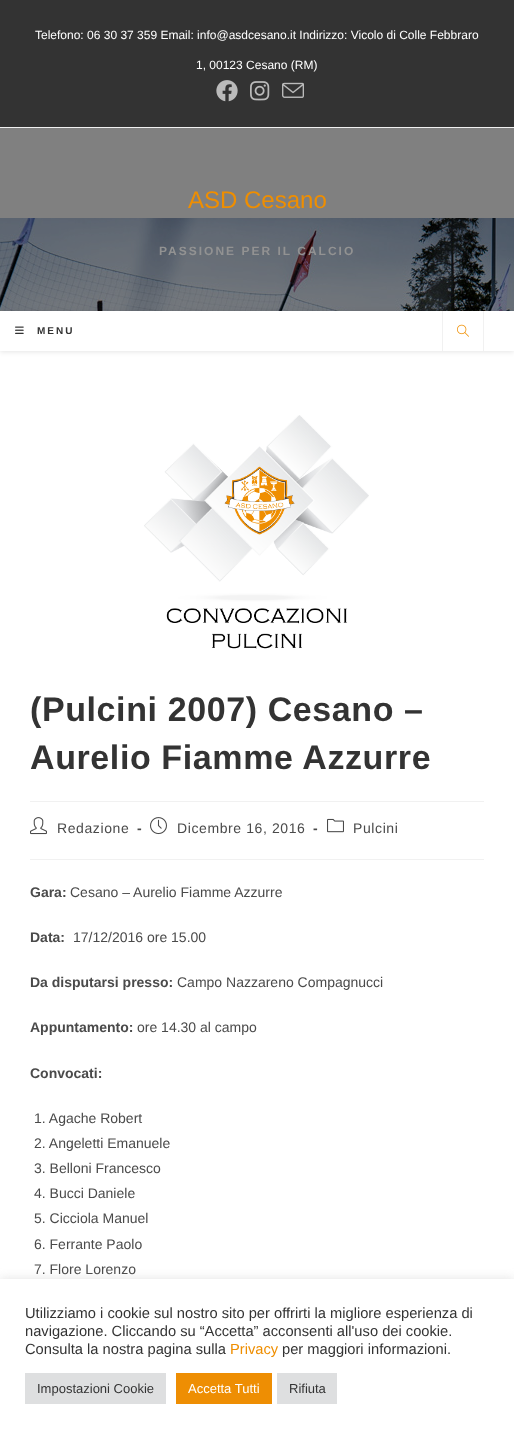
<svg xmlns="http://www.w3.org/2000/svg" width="514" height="1434">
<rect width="100%" height="100%" fill="#fff"/>
<rect y="128" width="514" height="90" fill="#808080"/>
<rect width="514" height="127" fill="#333"/>
<rect y="127" width="514" height="1" fill="#f1f1f1"/>
<text x="35" y="39" style="font-family:Liberation Sans;font-size:12px;fill:#fff">Telefono: 06 30 37 359 Email: info@asdcesano.it Indirizzo: Vicolo di Colle Febbraro</text>
<text x="196" y="69" style="font-family:Liberation Sans;font-size:12px;fill:#fff">1, 00123 Cesano (RM)</text>
<image x="216" y="80" width="22" height="22" href="media/1.png"/>
<image x="250" y="81" width="20" height="20" href="media/2.png"/>
<image x="282" y="82" width="22" height="16" href="media/3.png"/>
<image x="0" y="218" width="514" height="93" href="media/4.png"/>
<text x="188" y="208" style="font-family:Liberation Sans;font-size:24px;fill:#ef8e00">ASD Cesano</text>
<text x="159" y="255" style="font-family:Liberation Sans;font-size:12px;font-weight:bold;letter-spacing:2px;fill:#929292">PASSIONE PER IL CALCIO</text>
<rect y="312" width="514" height="40" fill="#0000001a" filter="blur(2.5px)"/>
<rect y="311" width="514" height="40" fill="#fff"/>
<image x="15" y="326" width="9" height="8" href="media/5.png"/>
<text x="37" y="334" style="font-family:Liberation Sans;font-size:10px;font-weight:bold;letter-spacing:2px;fill:#333">MENU</text>
<rect x="483" y="311" width="1" height="40" fill="#f1f1f1"/>
<rect x="442" y="311" width="1" height="40" fill="#f1f1f1"/>
<image x="457" y="324" width="12" height="13" href="media/6.png"/>
<image x="144" y="415" width="225" height="234" href="media/7.png"/>
<rect x="30" y="801" width="454" height="1" fill="#f1f1f1"/>
<text x="30" y="721" style="font-family:Liberation Sans;font-size:34px;font-weight:bold;letter-spacing:0.6px;fill:#333">(Pulcini 2007) Cesano –</text>
<text x="30" y="769" style="font-family:Liberation Sans;font-size:34px;font-weight:bold;letter-spacing:0.6px;fill:#333">Aurelio Fiamme Azzurre</text>
<rect x="30" y="859" width="454" height="1" fill="#f1f1f1"/>
<image x="30" y="817" width="17" height="18" href="media/8.png"/>
<text x="57" y="833" style="font-family:Liberation Sans;font-size:14px;letter-spacing:0.6px;fill:#4a4a4a">Redazione</text>
<text x="137" y="833" style="font-family:Liberation Sans;font-size:14px;font-weight:bold;letter-spacing:0.6px;fill:#4a4a4a">-</text>
<image x="150" y="817" width="17" height="18" href="media/9.png"/>
<text x="177" y="833" style="font-family:Liberation Sans;font-size:14px;letter-spacing:0.6px;fill:#4a4a4a">Dicembre 16, 2016</text>
<text x="313" y="833" style="font-family:Liberation Sans;font-size:14px;font-weight:bold;letter-spacing:0.6px;fill:#4a4a4a">-</text>
<image x="327" y="818" width="17" height="15" href="media/10.png"/>
<text x="353" y="833" style="font-family:Liberation Sans;font-size:14px;letter-spacing:0.6px;fill:#4a4a4a">Pulcini</text>
<text x="30" y="897" style="font-family:Liberation Sans;font-size:14px;font-weight:bold;fill:#4a4a4a">Gara:</text>
<text x="70" y="897" style="font-family:Liberation Sans;font-size:14px;fill:#4a4a4a">Cesano – Aurelio Fiamme Azzurre</text>
<text x="30" y="942" style="font-family:Liberation Sans;font-size:14px;font-weight:bold;fill:#4a4a4a">Data:</text>
<text x="73" y="942" style="font-family:Liberation Sans;font-size:14px;fill:#4a4a4a">17/12/2016 ore 15.00</text>
<text x="30" y="987" style="font-family:Liberation Sans;font-size:14px;font-weight:bold;fill:#4a4a4a">Da disputarsi presso:</text>
<text x="177" y="987" style="font-family:Liberation Sans;font-size:14px;fill:#4a4a4a">Campo Nazzareno Compagnucci</text>
<text x="30" y="1032" style="font-family:Liberation Sans;font-size:14px;font-weight:bold;fill:#4a4a4a">Appuntamento:</text>
<text x="137" y="1032" style="font-family:Liberation Sans;font-size:14px;fill:#4a4a4a">ore 14.30 al campo</text>
<text x="30" y="1078" style="font-family:Liberation Sans;font-size:14px;font-weight:bold;fill:#4a4a4a">Convocati:</text>
<text x="34" y="1123" style="font-family:Liberation Sans;font-size:14px;fill:#4a4a4a">1. Agache Robert</text>
<text x="34" y="1148" style="font-family:Liberation Sans;font-size:14px;fill:#4a4a4a">2. Angeletti Emanuele</text>
<text x="34" y="1173" style="font-family:Liberation Sans;font-size:14px;fill:#4a4a4a">3. Belloni Francesco</text>
<text x="34" y="1198" style="font-family:Liberation Sans;font-size:14px;fill:#4a4a4a">4. Bucci Daniele</text>
<text x="34" y="1223" style="font-family:Liberation Sans;font-size:14px;fill:#4a4a4a">5. Cicciola Manuel</text>
<text x="34" y="1249" style="font-family:Liberation Sans;font-size:14px;fill:#4a4a4a">6. Ferrante Paolo</text>
<text x="34" y="1274" style="font-family:Liberation Sans;font-size:14px;fill:#4a4a4a">7. Flore Lorenzo</text>
<rect y="1278" width="514" height="155" fill="#acabab4d" filter="blur(5px)"/>
<rect y="1279" width="514" height="155" fill="#fff"/>
<text x="25" y="1318" style="font-family:Liberation Sans;font-size:14.7px;fill:#333">Utilizziamo i cookie sul nostro sito per offrirti la migliore esperienza di</text>
<text x="25" y="1336" style="font-family:Liberation Sans;font-size:14.7px;fill:#333">navigazione. Cliccando su “Accetta” acconsenti all'uso dei cookie.</text>
<text x="25" y="1354" style="font-family:Liberation Sans;font-size:14.7px;fill:#333">Consulta la nostra pagina sulla</text>
<text x="230" y="1354" style="font-family:Liberation Sans;font-size:14.7px;fill:#ef8e00">Privacy</text>
<text x="282" y="1354" style="font-family:Liberation Sans;font-size:14.7px;fill:#333">per maggiori informazioni.</text>
<rect x="25" y="1373" width="141" height="31" fill="#dedfe0"/>
<text x="37" y="1393" style="font-family:Liberation Sans;font-size:13px;fill:#333">Impostazioni Cookie</text>
<rect x="176" y="1373" width="96" height="31" fill="#ee8e03"/>
<text x="188" y="1393" style="font-family:Liberation Sans;font-size:13px;fill:#fff">Accetta Tutti</text>
<rect x="277" y="1373" width="60" height="31" fill="#dedfe0"/>
<text x="289" y="1393" style="font-family:Liberation Sans;font-size:13px;fill:#333">Rifiuta</text>
</svg>
